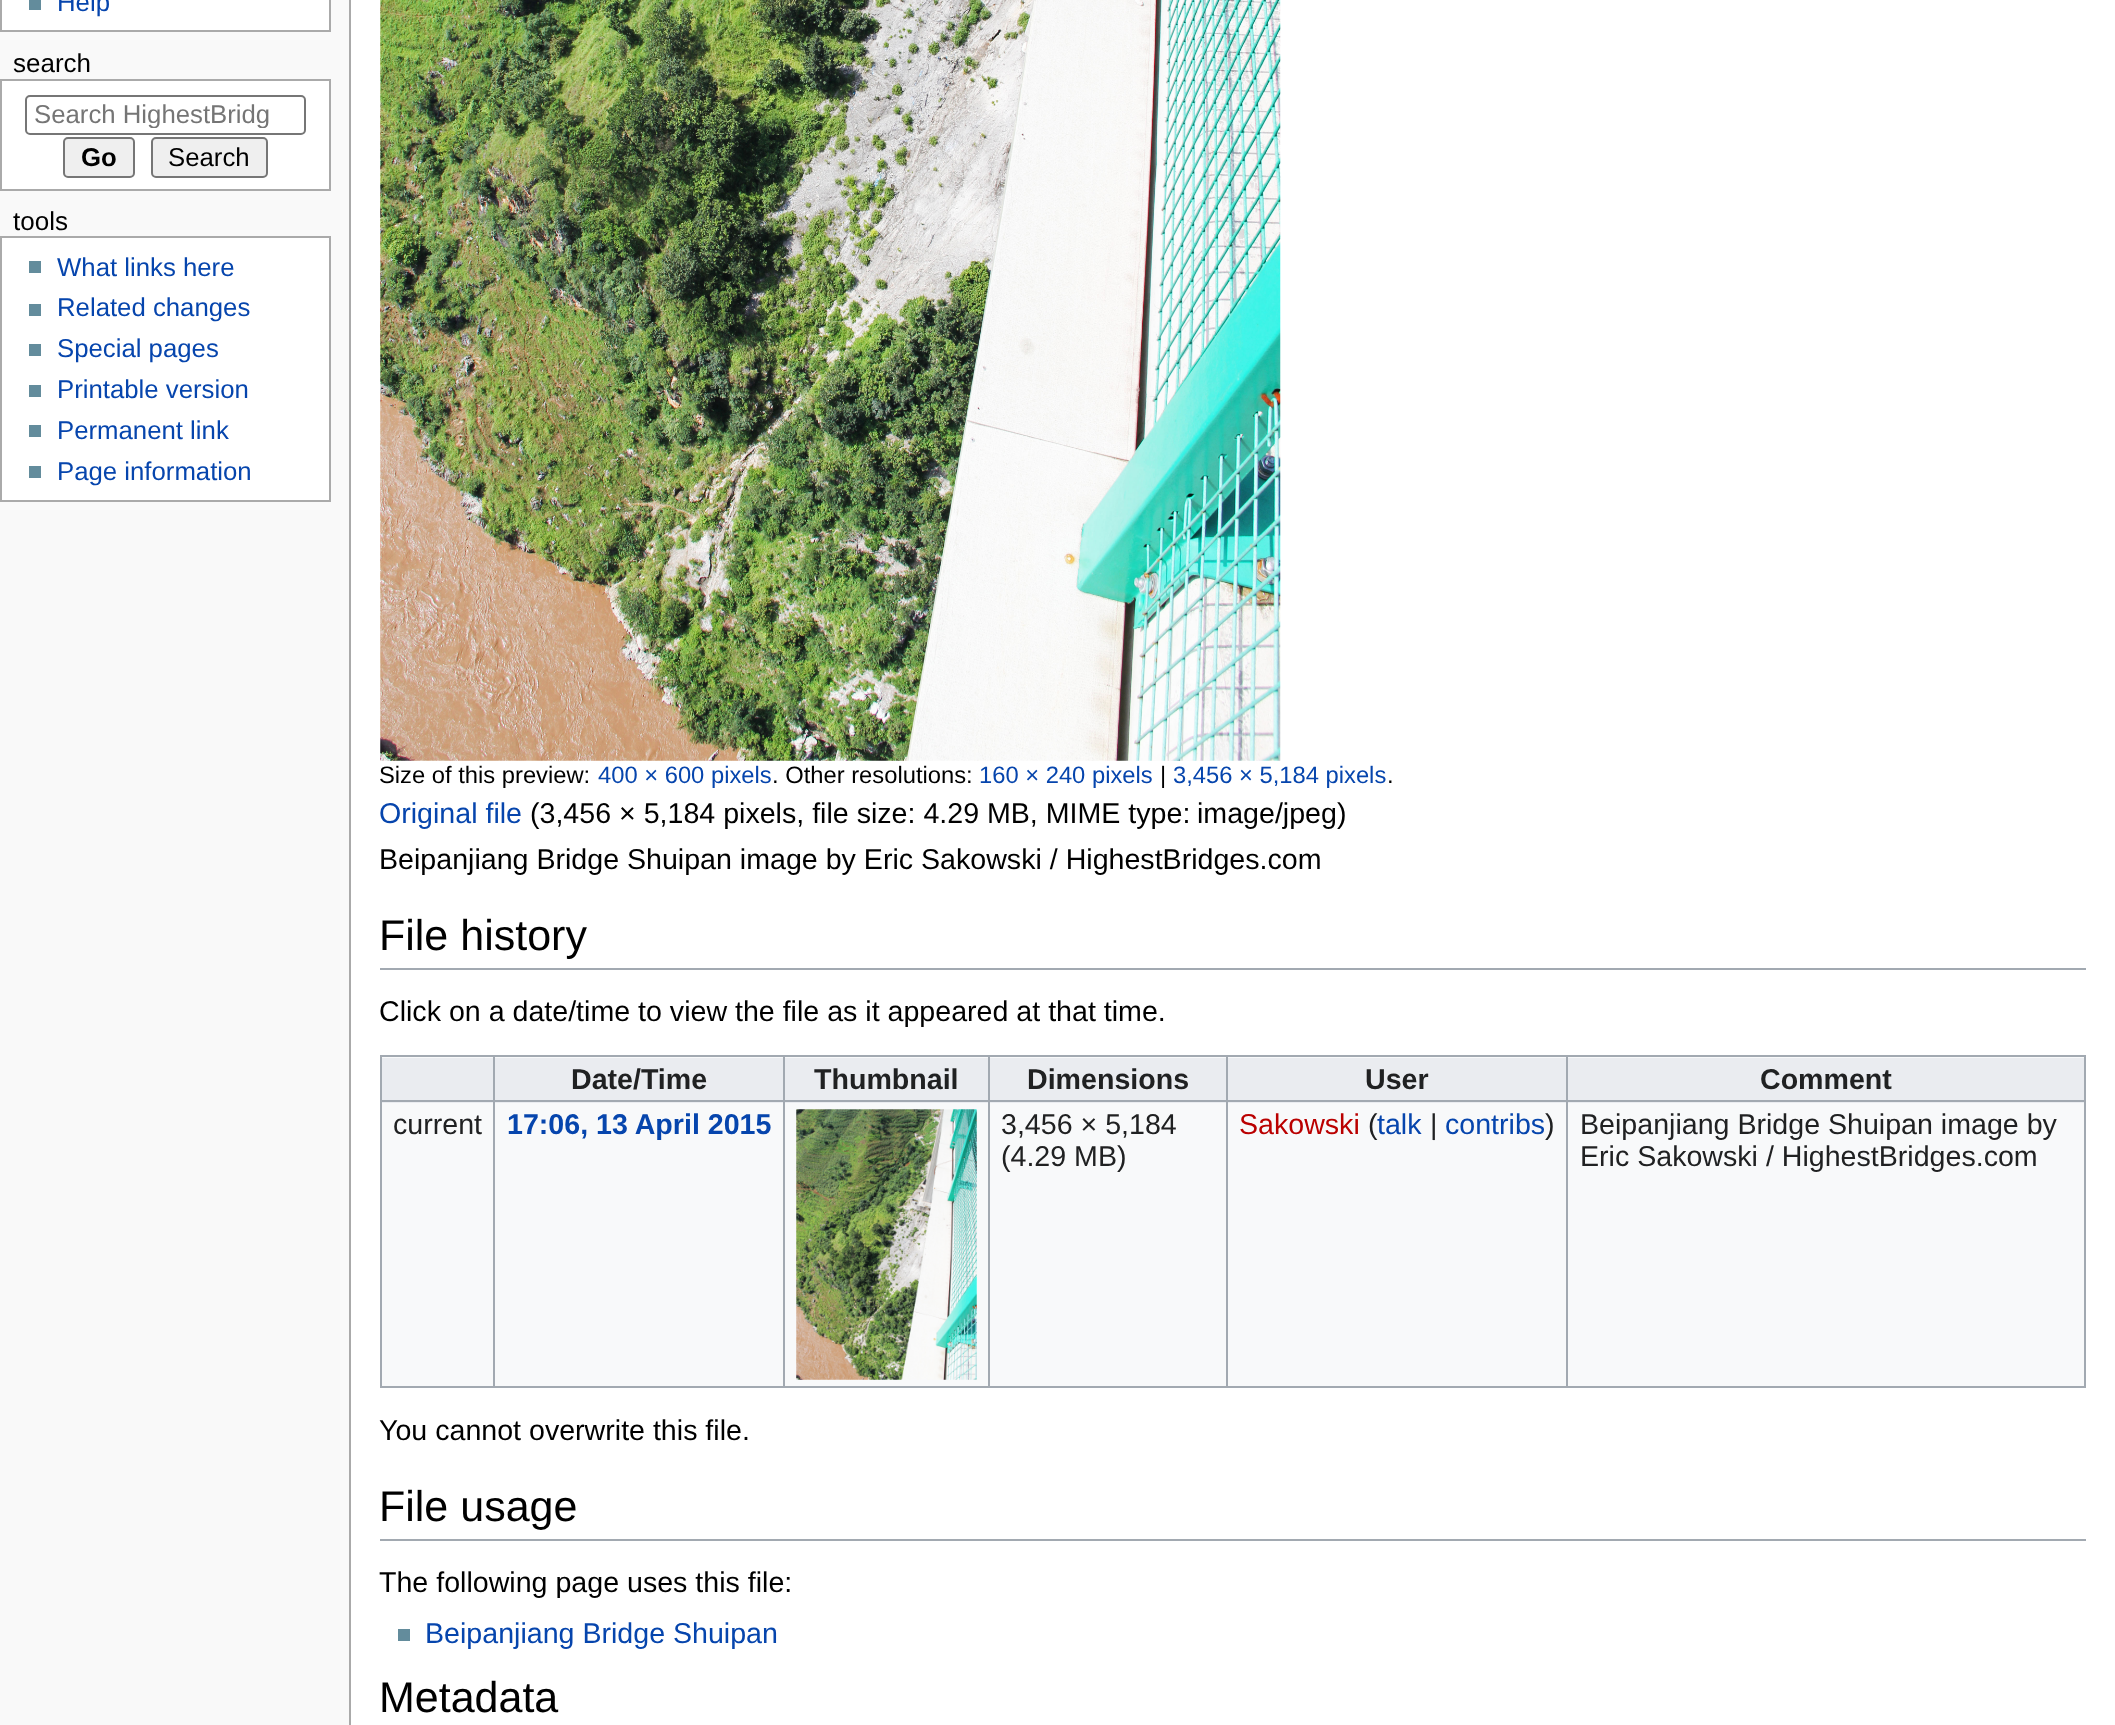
<svg xmlns="http://www.w3.org/2000/svg" width="2115" height="1725">
<defs>
<clipPath id="clip1"><rect x="34" y="101" width="236" height="27"/></clipPath>
</defs>
<rect width="100%" height="100%" fill="#f9f9f9"/>
<rect x="1" y="-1" width="329" height="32" fill="#fff" stroke="#aaa" stroke-width="2"/>
<rect x="29" width="12" height="10" fill="#638c9c"/>
<text x="57" y="11" style="font-family:Liberation Sans;font-size:25.75px;fill:#0645ad">Help</text>
<text x="13" y="72" style="font-family:Liberation Sans;font-size:26px;fill:#000">search</text>
<rect x="1" y="80" width="329" height="110" fill="#fff" stroke="#aaa" stroke-width="2"/>
<rect x="26" y="96" width="279" height="38" rx="4" fill="none" stroke="#767676" stroke-width="2"/>
<g clip-path="url(#clip1)">
<text x="34" y="123" style="font-family:Liberation Sans;font-size:25.75px;fill:#757575">Search HighestBridg</text>
</g>
<rect x="64" y="138" width="70" height="39" rx="4" fill="#efefef" stroke="#767676" stroke-width="2"/>
<text x="81" y="166" style="font-family:Liberation Sans;font-size:25.75px;font-weight:bold;fill:#000">Go</text>
<rect x="152" y="138" width="115" height="39" rx="4" fill="#efefef" stroke="#767676" stroke-width="2"/>
<text x="168" y="166" style="font-family:Liberation Sans;font-size:25.75px;fill:#000">Search</text>
<text x="13" y="230" style="font-family:Liberation Sans;font-size:26px;fill:#000">tools</text>
<rect x="1" y="237" width="329" height="264" fill="#fff" stroke="#aaa" stroke-width="2"/>
<rect x="29" y="261" width="12" height="12" fill="#638c9c"/>
<text x="57" y="276" style="font-family:Liberation Sans;font-size:25.75px;fill:#0645ad">What links here</text>
<rect x="29" y="304" width="12" height="12" fill="#638c9c"/>
<text x="57" y="316" style="font-family:Liberation Sans;font-size:25.75px;fill:#0645ad">Related changes</text>
<rect x="29" y="344" width="12" height="12" fill="#638c9c"/>
<text x="57" y="357" style="font-family:Liberation Sans;font-size:25.75px;fill:#0645ad">Special pages</text>
<rect x="29" y="385" width="12" height="12" fill="#638c9c"/>
<text x="57" y="398" style="font-family:Liberation Sans;font-size:25.75px;fill:#0645ad">Printable version</text>
<rect x="29" y="425" width="12" height="12" fill="#638c9c"/>
<text x="57" y="439" style="font-family:Liberation Sans;font-size:25.75px;fill:#0645ad">Permanent link</text>
<rect x="29" y="466" width="12" height="12" fill="#638c9c"/>
<text x="57" y="480" style="font-family:Liberation Sans;font-size:25.75px;fill:#0645ad">Page information</text>
<rect x="351" width="1764" height="1725" fill="#fff"/>
<rect x="349" width="2" height="1725" fill="#aaa"/>
<image x="380" y="0" width="901" height="761" href="media/1.png"/>
<text x="379" y="783" style="font-family:Liberation Sans;font-size:23.75px;fill:#000">Size of this preview:</text>
<text x="598" y="783" style="font-family:Liberation Sans;font-size:23.75px;fill:#0645ad">400 × 600 pixels</text>
<text x="772" y="783" style="font-family:Liberation Sans;font-size:23.75px;fill:#000">. Other resolutions:</text>
<text x="979" y="783" style="font-family:Liberation Sans;font-size:23.75px;fill:#0645ad">160 × 240 pixels</text>
<text x="1160" y="783" style="font-family:Liberation Sans;font-size:23.75px;fill:#000">|</text>
<text x="1173" y="783" style="font-family:Liberation Sans;font-size:23.75px;fill:#0645ad">3,456 × 5,184 pixels</text>
<text x="1387" y="783" style="font-family:Liberation Sans;font-size:23.75px;fill:#000">.</text>
<text x="379" y="823" style="font-family:Liberation Sans;font-size:28.6px;fill:#0645ad">Original file</text>
<text x="530" y="823" style="font-family:Liberation Sans;font-size:28.6px;fill:#000">(3,456 × 5,184 pixels, file size: 4.29 MB, MIME type:</text>
<text x="1197" y="823" style="font-family:Liberation Sans;font-size:28.6px;fill:#000">image/jpeg)</text>
<text x="379" y="869" style="font-family:Liberation Sans;font-size:28.6px;fill:#000">Beipanjiang Bridge Shuipan image by Eric Sakowski / HighestBridges.com</text>
<rect x="380" y="968" width="1706" height="2" fill="#a2a9b1"/>
<text x="379" y="950" style="font-family:Liberation Sans;font-size:43px;fill:#000">File history</text>
<text x="379" y="1021" style="font-family:Liberation Sans;font-size:28.6px;fill:#000">Click on a date/time to view the file as it appeared at that time.</text>
<rect x="382" y="1057" width="1702" height="329" fill="#f8f9fa"/>
<rect x="380" y="1055" width="1706" height="2" fill="#a2a9b1"/>
<rect x="2084" y="1055" width="2" height="333" fill="#a2a9b1"/>
<rect x="380" y="1386" width="1706" height="2" fill="#a2a9b1"/>
<rect x="380" y="1055" width="2" height="333" fill="#a2a9b1"/>
<rect x="382" y="1058" width="111" height="45" fill="#eaecf0"/>
<rect x="495" y="1058" width="288" height="45" fill="#eaecf0"/>
<rect x="785" y="1058" width="203" height="45" fill="#eaecf0"/>
<rect x="990" y="1058" width="236" height="45" fill="#eaecf0"/>
<rect x="1228" y="1058" width="338" height="45" fill="#eaecf0"/>
<rect x="1568" y="1058" width="516" height="45" fill="#eaecf0"/>
<rect x="1566" y="1100" width="520" height="2" fill="#a2a9b1"/>
<rect x="1566" y="1100" width="2" height="288" fill="#a2a9b1"/>
<rect x="1226" y="1100" width="342" height="2" fill="#a2a9b1"/>
<rect x="1226" y="1100" width="2" height="288" fill="#a2a9b1"/>
<rect x="988" y="1100" width="241" height="2" fill="#a2a9b1"/>
<rect x="988" y="1100" width="2" height="288" fill="#a2a9b1"/>
<rect x="783" y="1100" width="207" height="2" fill="#a2a9b1"/>
<rect x="783" y="1100" width="2" height="288" fill="#a2a9b1"/>
<rect x="493" y="1100" width="292" height="2" fill="#a2a9b1"/>
<rect x="493" y="1100" width="2" height="288" fill="#a2a9b1"/>
<rect x="380" y="1100" width="115" height="2" fill="#a2a9b1"/>
<rect x="493" y="1055" width="2" height="48" fill="#a2a9b1"/>
<text x="571" y="1089" style="font-family:Liberation Sans;font-size:28.6px;font-weight:bold;fill:#202122">Date/Time</text>
<rect x="783" y="1055" width="2" height="48" fill="#a2a9b1"/>
<text x="814" y="1089" style="font-family:Liberation Sans;font-size:28.6px;font-weight:bold;fill:#202122">Thumbnail</text>
<rect x="988" y="1055" width="2" height="48" fill="#a2a9b1"/>
<text x="1027" y="1089" style="font-family:Liberation Sans;font-size:28.6px;font-weight:bold;fill:#202122">Dimensions</text>
<rect x="1226" y="1055" width="2" height="48" fill="#a2a9b1"/>
<text x="1365" y="1089" style="font-family:Liberation Sans;font-size:28.6px;font-weight:bold;fill:#202122">User</text>
<rect x="1566" y="1055" width="2" height="48" fill="#a2a9b1"/>
<text x="1760" y="1089" style="font-family:Liberation Sans;font-size:28.6px;font-weight:bold;fill:#202122">Comment</text>
<text x="393" y="1134" style="font-family:Liberation Sans;font-size:28.6px;fill:#202122">current</text>
<text x="507" y="1134" style="font-family:Liberation Sans;font-size:28.6px;font-weight:bold;fill:#0645ad">17:06, 13 April 2015</text>
<rect x="797" y="1109" width="180" height="270" fill="#fff"/>
<image x="796" y="1109" width="181" height="271" href="media/2.png"/>
<image x="796" y="1109" width="181" height="271" href="media/3.png"/>
<text x="1001" y="1134" style="font-family:Liberation Sans;font-size:28.6px;fill:#202122">3,456 × 5,184</text>
<text x="1001" y="1166" style="font-family:Liberation Sans;font-size:28.6px;fill:#202122">(4.29 MB)</text>
<text x="1239" y="1134" style="font-family:Liberation Sans;font-size:28.6px;fill:#ba0000">Sakowski</text>
<text x="1368" y="1134" style="font-family:Liberation Sans;font-size:28.6px;fill:#202122">(</text>
<text x="1377" y="1134" style="font-family:Liberation Sans;font-size:28.6px;fill:#0645ad">talk</text>
<text x="1430" y="1134" style="font-family:Liberation Sans;font-size:28.6px;fill:#202122">|</text>
<text x="1445" y="1134" style="font-family:Liberation Sans;font-size:28.6px;fill:#0645ad">contribs</text>
<text x="1545" y="1134" style="font-family:Liberation Sans;font-size:28.6px;fill:#202122">)</text>
<text x="1580" y="1134" style="font-family:Liberation Sans;font-size:28.6px;fill:#202122">Beipanjiang Bridge Shuipan image by</text>
<text x="1580" y="1166" style="font-family:Liberation Sans;font-size:28.6px;fill:#202122">Eric Sakowski / HighestBridges.com</text>
<text x="379" y="1440" style="font-family:Liberation Sans;font-size:28.6px;fill:#000">You cannot overwrite this file.</text>
<rect x="380" y="1539" width="1706" height="2" fill="#a2a9b1"/>
<text x="379" y="1521" style="font-family:Liberation Sans;font-size:43px;fill:#000">File usage</text>
<text x="379" y="1592" style="font-family:Liberation Sans;font-size:28.6px;fill:#000">The following page uses this file:</text>
<rect x="398" y="1629" width="12" height="12" fill="#638c9c"/>
<text x="425" y="1643" style="font-family:Liberation Sans;font-size:28.6px;fill:#0645ad">Beipanjiang Bridge Shuipan</text>
<text x="379" y="1712" style="font-family:Liberation Sans;font-size:43px;fill:#000">Metadata</text>
</svg>
